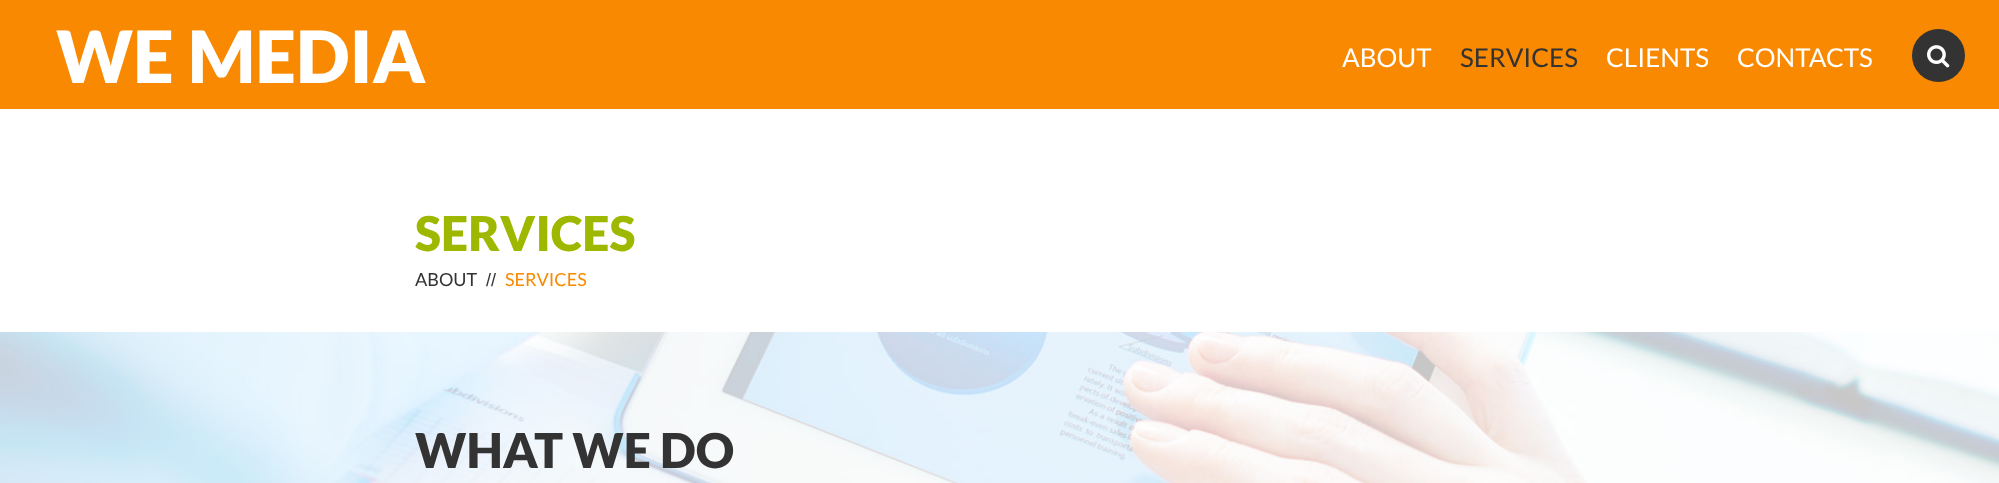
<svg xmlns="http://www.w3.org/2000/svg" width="1999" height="483">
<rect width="100%" height="100%" fill="#fff"/>
<rect width="1999" height="109" fill="#f98900"/>
<text x="56" y="83" style="font-family:Lato;font-size:72px;font-weight:900;fill:#fff">WE MEDIA</text>
<text x="1342" y="67" style="font-family:Lato;font-size:26px;fill:#fff">ABOUT</text>
<text x="1460" y="67" style="font-family:Lato;font-size:26px;fill:#333">SERVICES</text>
<text x="1606" y="67" style="font-family:Lato;font-size:26px;fill:#fff">CLIENTS</text>
<text x="1737" y="67" style="font-family:Lato;font-size:26px;fill:#fff">CONTACTS</text>
<circle cx="1938.5" cy="55.5" r="26.5" fill="#333"/>
<image x="1927" y="45" width="23" height="23" href="media/1.png"/>
<text x="415" y="251" style="font-family:Lato;font-size:48px;font-weight:900;fill:#9eb800">SERVICES</text>
<text x="415" y="286" style="font-family:Lato;font-size:18px;fill:#333">ABOUT</text>
<text x="486" y="286" style="font-family:Liberation Sans;font-size:18px;fill:#333">//</text>
<text x="505" y="286" style="font-family:Lato;font-size:18px;fill:#f98900">SERVICES</text>
<image x="0" y="332" width="1999" height="151" href="media/2.png"/>
<text x="415" y="468" style="font-family:Lato;font-size:48px;font-weight:900;fill:#333">WHAT WE DO</text>
</svg>
